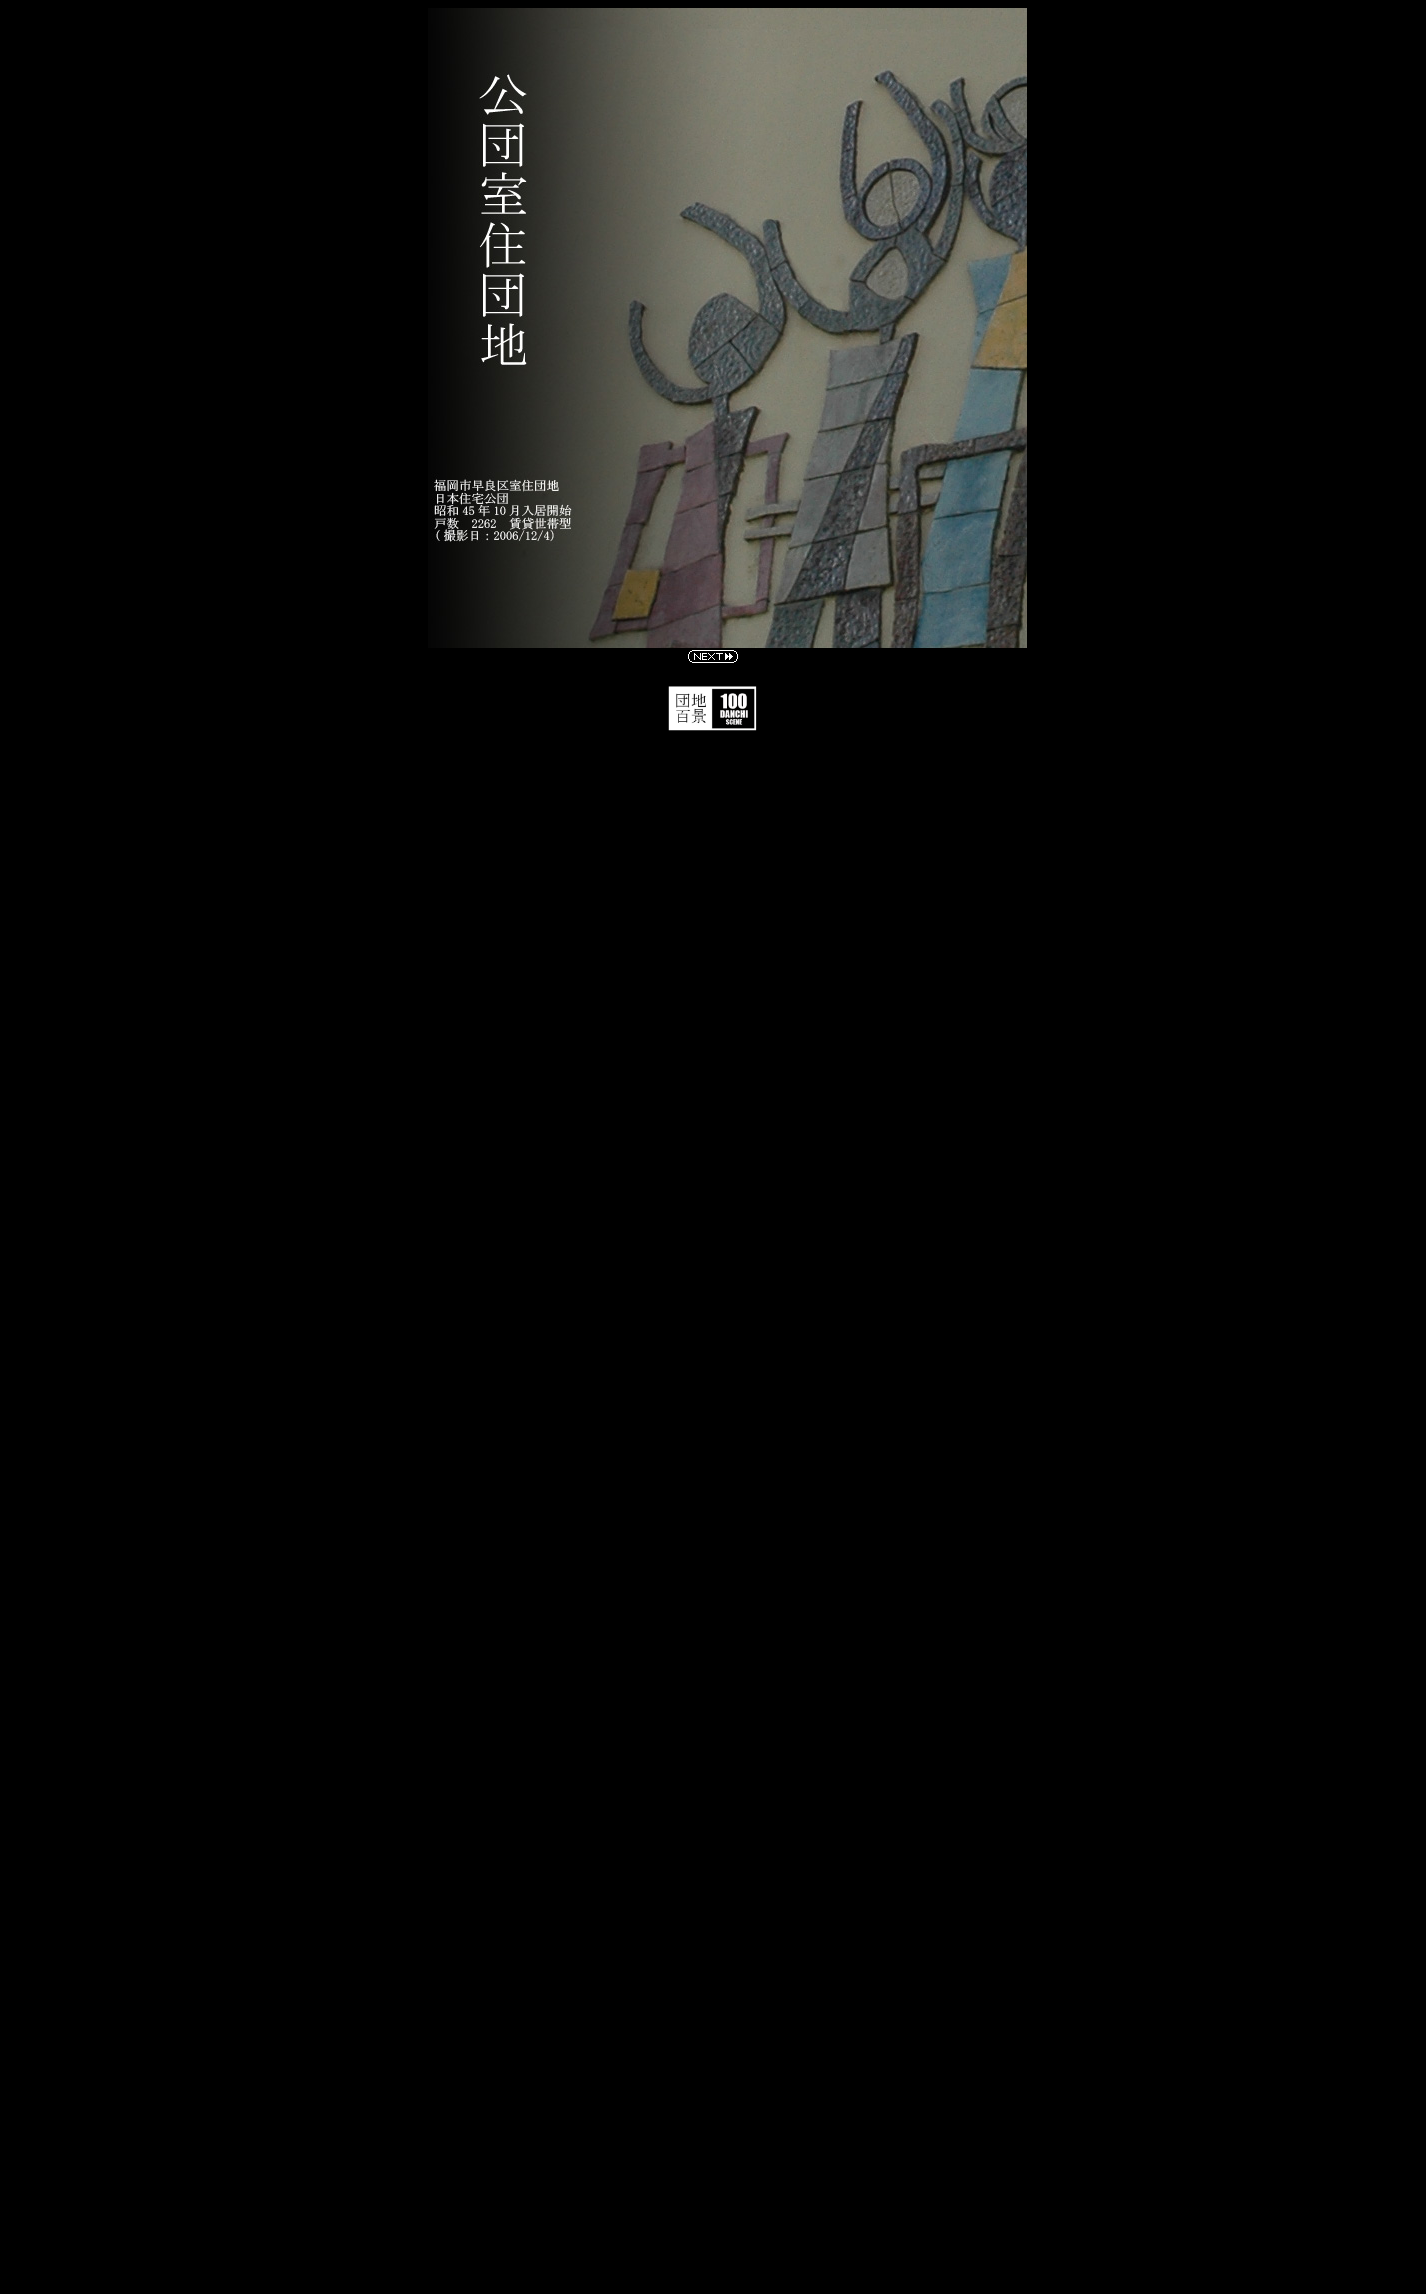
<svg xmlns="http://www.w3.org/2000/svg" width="1426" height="2294">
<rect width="100%" height="100%" fill="#000"/>
<image x="428" y="8" width="599" height="640" href="media/1.png"/>
<image x="688" y="650" width="50" height="13" href="media/2.png"/>
<image x="668" y="686" width="89" height="45" href="media/3.png"/>
</svg>
